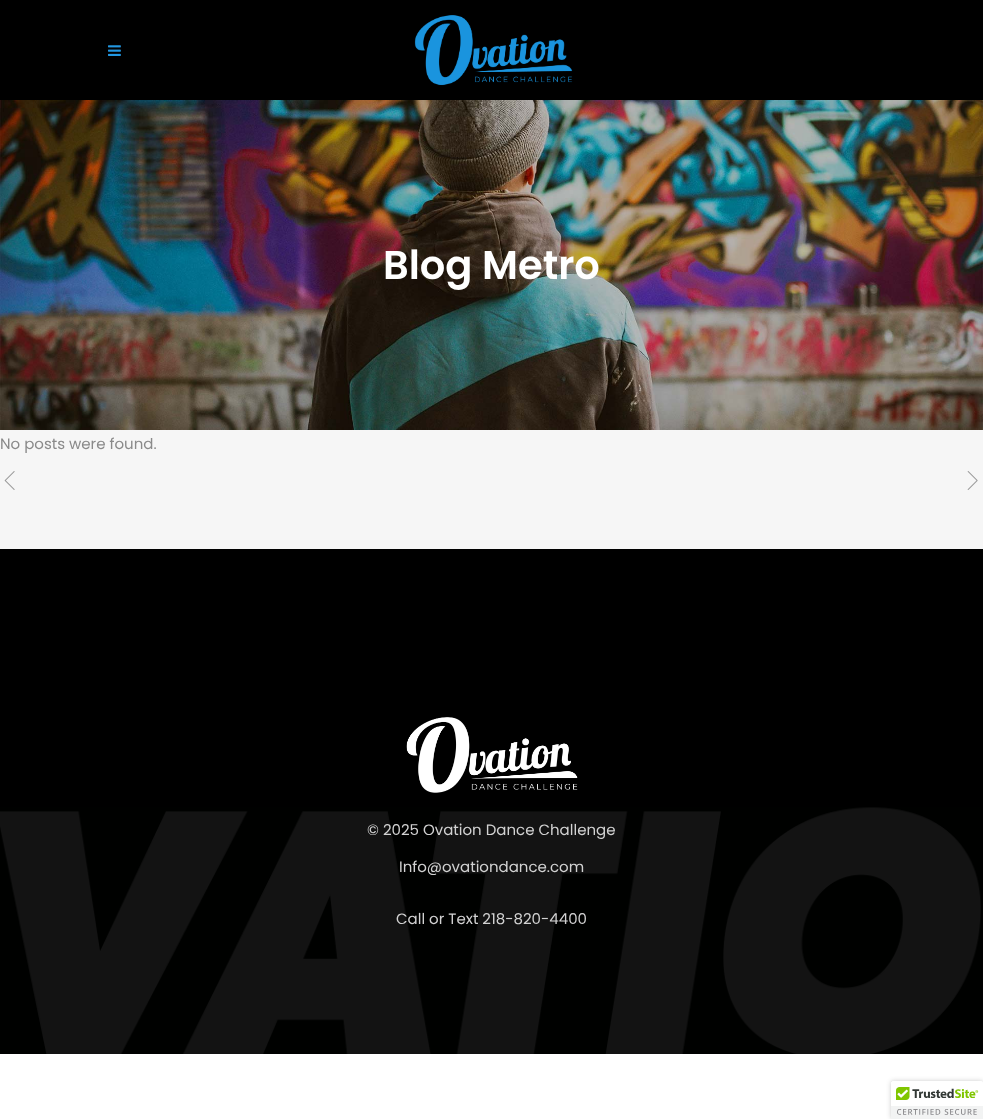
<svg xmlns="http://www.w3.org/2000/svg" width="983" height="1119">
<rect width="100%" height="100%" fill="#fff"/>
<rect width="983" height="1054" fill="#000"/>
<image x="108" y="45" width="13" height="11" href="media/1.png"/>
<image x="414" y="15" width="159" height="71" href="media/2.png"/>
<image x="0" y="100" width="983" height="330" href="media/3.png"/>
<text x="383" y="279" style="font-family:Poppins;font-size:40px;font-weight:600;fill:#fff">Blog Metro</text>
<rect y="430" width="983" height="119" fill="#f6f6f6"/>
<text x="0" y="449" style="font-family:Poppins;font-size:15px;fill:#8a8a8a">No posts were found.</text>
<image x="4" y="471" width="11" height="19" href="media/4.png"/>
<image x="967" y="471" width="11" height="19" href="media/5.png"/>
<image x="0" y="807" width="981" height="247" href="media/6.png"/>
<image x="406" y="717" width="172" height="76" href="media/7.png"/>
<text x="367" y="835" style="font-family:Poppins;font-size:15px;fill:#d2d2d2">© 2025 Ovation Dance Challenge</text>
<text x="399" y="872" style="font-family:Poppins;font-size:15px;fill:#d2d2d2">Info@ovationdance.com</text>
<text x="396" y="924" style="font-family:Poppins;font-size:15px;fill:#d2d2d2">Call or Text 218-820-4400</text>
<rect x="891" y="1081" width="92" height="38" rx="2" fill="#00000033" filter="blur(2.5px)"/>
<path d="M893 1081h90v38h-92v-36c0-1 1-2 2-2z" fill="#fff"/>
<image x="891" y="1081" width="92" height="38" href="media/8.png"/>
</svg>
